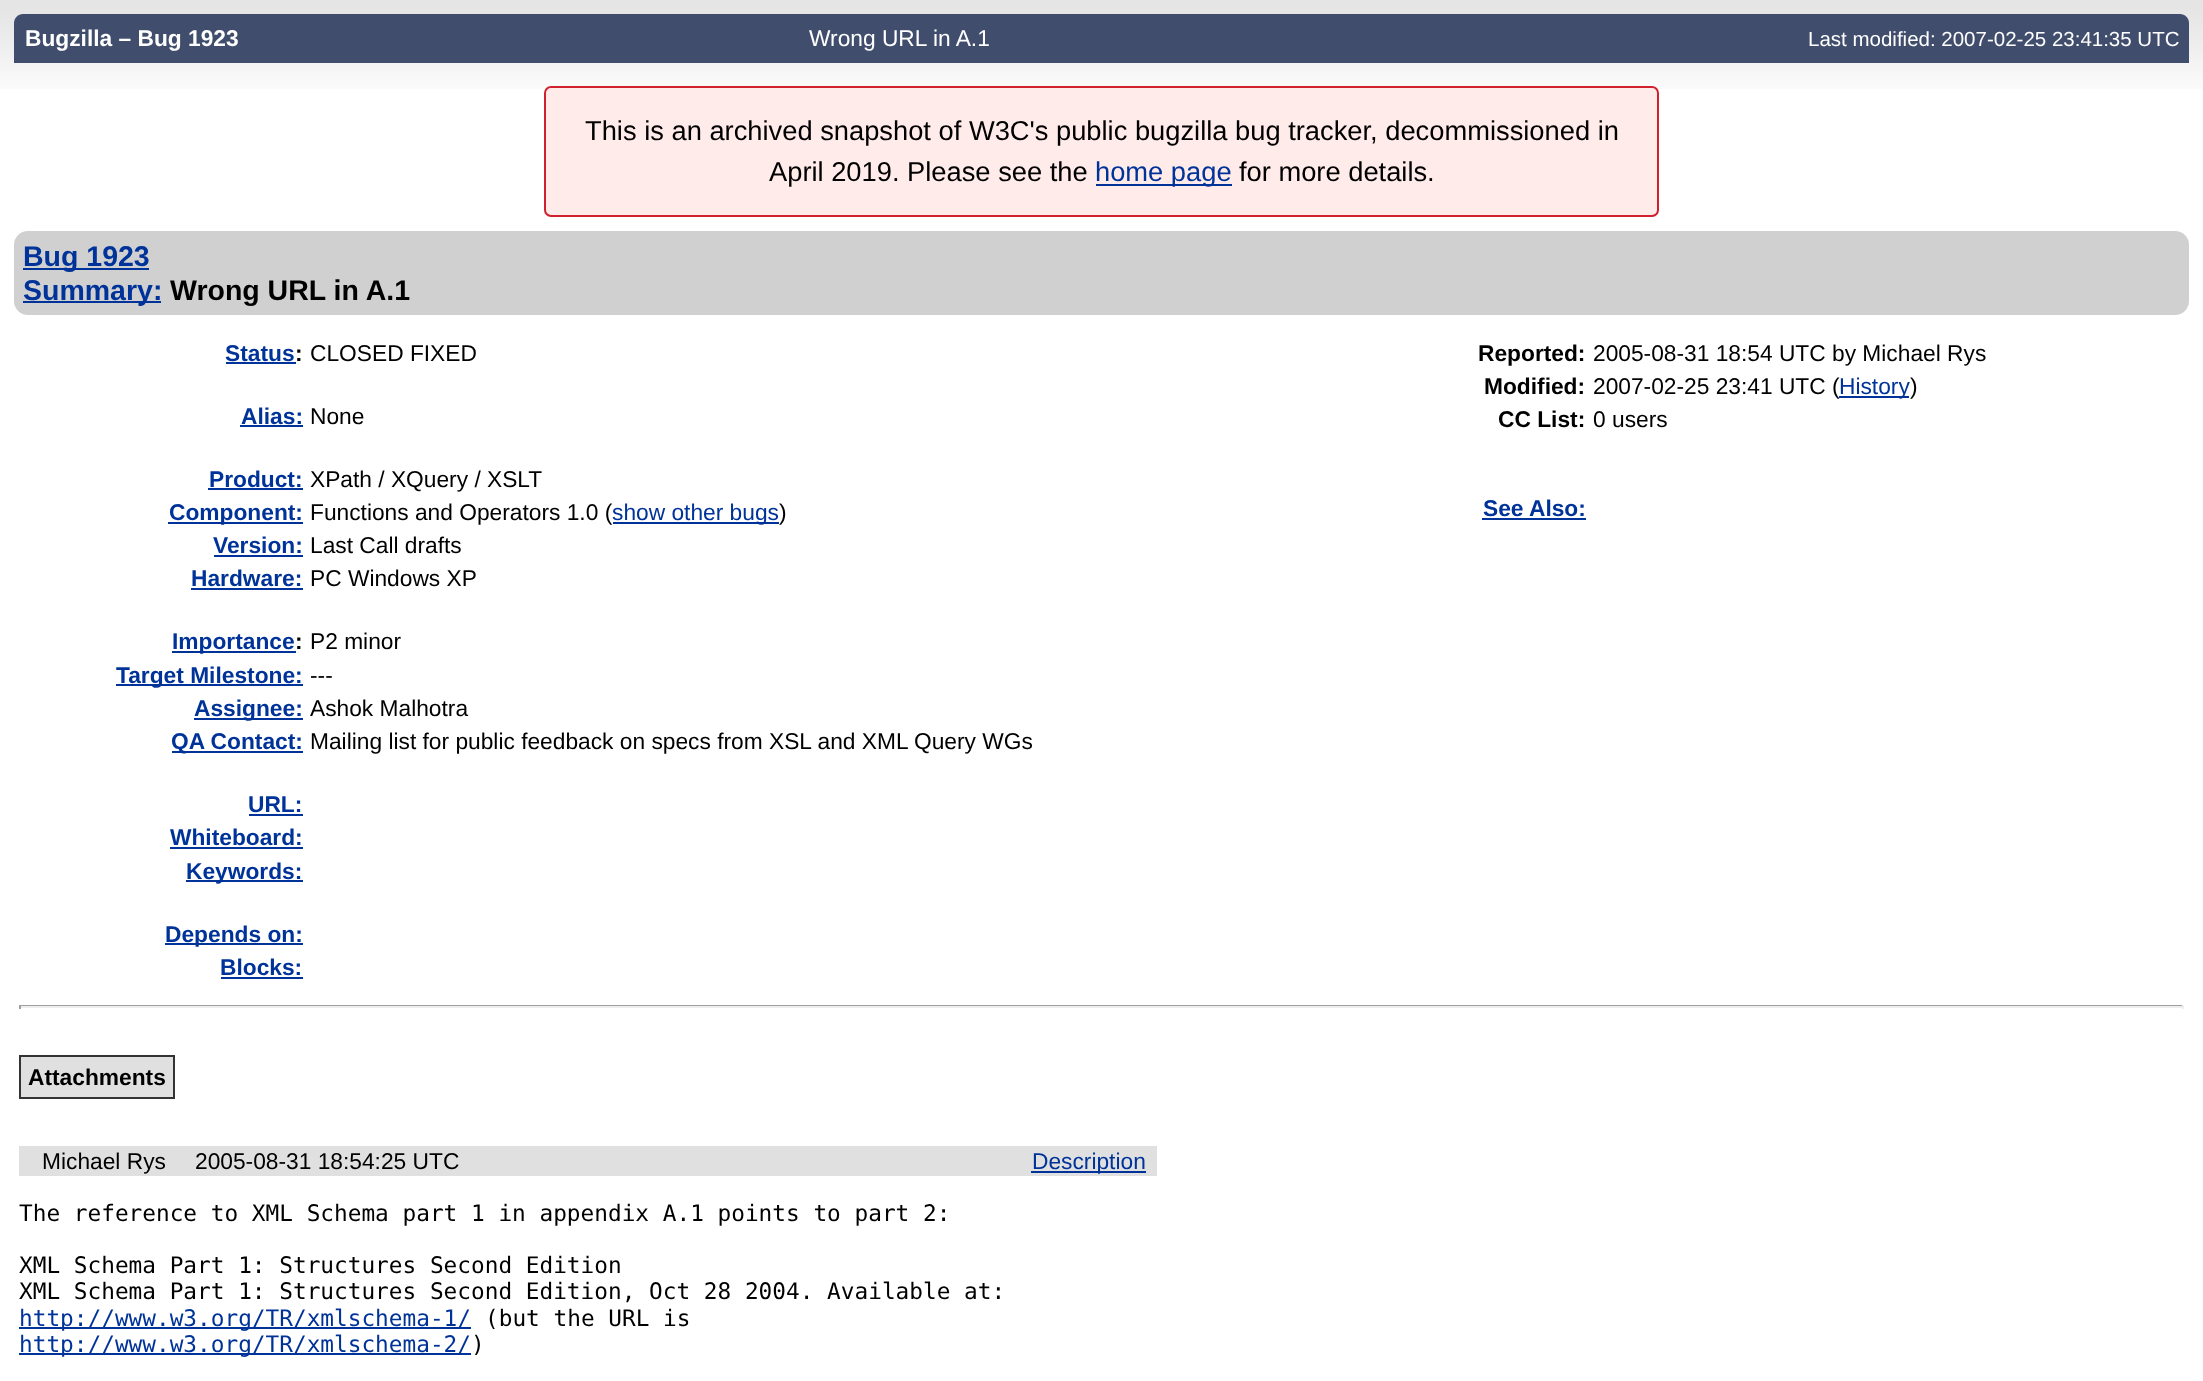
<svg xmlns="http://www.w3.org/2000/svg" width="2203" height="1381">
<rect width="100%" height="100%" fill="#fff"/>
<image x="0" y="0" width="2203" height="89" href="media/1.png"/>
<path d="M23 14h2157c5 0 9 4 9 9v40h-2175v-40c0-5 4-9 9-9z" fill="#404d6c"/>
<text x="25" y="46" style="font-family:Liberation Sans;font-size:22.75px;font-weight:bold;fill:#fff">Bugzilla – Bug 1923</text>
<text x="809" y="46" style="font-family:Liberation Sans;font-size:22.75px;fill:#fff">Wrong URL in A.1</text>
<text x="1808" y="46" style="font-family:Liberation Sans;font-size:20.5px;fill:#fff">Last modified: 2007-02-25 23:41:35 UTC</text>
<rect x="545" y="87" width="1113" height="129" rx="6" fill="#ffebe9" stroke="#cf222e" stroke-width="2"/>
<text x="585" y="140" style="font-family:Liberation Sans;font-size:27.3px;fill:#000">This is an archived snapshot of W3C's public bugzilla bug tracker, decommissioned in</text>
<text x="769" y="181" style="font-family:Liberation Sans;font-size:27.3px;fill:#000">April 2019. Please see the</text>
<rect x="1096" y="184" width="136" height="2" fill="#039"/>
<text x="1095" y="181" style="font-family:Liberation Sans;font-size:27.3px;fill:#039">home page</text>
<text x="1239" y="181" style="font-family:Liberation Sans;font-size:27.3px;fill:#000">for more details.</text>
<rect x="14" y="231" width="2175" height="84" rx="14" fill="#d0d0d0"/>
<rect x="23" y="268" width="126" height="2" fill="#039"/>
<text x="23" y="266" style="font-family:Liberation Sans;font-size:28.5px;font-weight:bold;fill:#039">Bug 1923</text>
<rect x="23" y="301" width="138" height="2" fill="#039"/>
<text x="23" y="300" style="font-family:Liberation Sans;font-size:28.5px;font-weight:bold;fill:#039">Summary:</text>
<text x="170" y="300" style="font-family:Liberation Sans;font-size:28.5px;font-weight:bold;fill:#000">Wrong URL in A.1</text>
<text x="225" y="361" style="font-family:Liberation Sans;font-size:22.75px;font-weight:bold;fill:#039">Status</text>
<rect x="226" y="362" width="70" height="2" fill="#039"/>
<text x="295" y="361" style="font-family:Liberation Sans;font-size:22.75px;font-weight:bold;fill:#000">:</text>
<text x="310" y="361" style="font-family:Liberation Sans;font-size:22.75px;fill:#000">CLOSED FIXED</text>
<text x="241" y="424" style="font-family:Liberation Sans;font-size:22.75px;font-weight:bold;fill:#039">Alias:</text>
<rect x="240" y="425" width="63" height="2" fill="#039"/>
<text x="310" y="424" style="font-family:Liberation Sans;font-size:22.75px;fill:#000">None</text>
<text x="209" y="487" style="font-family:Liberation Sans;font-size:22.75px;font-weight:bold;fill:#039">Product:</text>
<rect x="208" y="488" width="95" height="2" fill="#039"/>
<text x="310" y="487" style="font-family:Liberation Sans;font-size:22.75px;fill:#000">XPath / XQuery / XSLT</text>
<rect x="168" y="522" width="135" height="2" fill="#039"/>
<text x="169" y="520" style="font-family:Liberation Sans;font-size:22.75px;font-weight:bold;fill:#039">Component:</text>
<text x="310" y="520" style="font-family:Liberation Sans;font-size:22.75px;fill:#000">Functions and Operators 1.0 (</text>
<rect x="613" y="522" width="166" height="2" fill="#039"/>
<text x="612" y="520" style="font-family:Liberation Sans;font-size:22.75px;fill:#039">show other bugs</text>
<text x="779" y="520" style="font-family:Liberation Sans;font-size:22.75px;fill:#000">)</text>
<text x="213" y="553" style="font-family:Liberation Sans;font-size:22.75px;font-weight:bold;fill:#039">Version:</text>
<rect x="214" y="555" width="89" height="2" fill="#039"/>
<text x="310" y="553" style="font-family:Liberation Sans;font-size:22.75px;fill:#000">Last Call drafts</text>
<text x="191" y="586" style="font-family:Liberation Sans;font-size:22.75px;font-weight:bold;fill:#039">Hardware:</text>
<rect x="191" y="588" width="112" height="2" fill="#039"/>
<text x="310" y="586" style="font-family:Liberation Sans;font-size:22.75px;fill:#000">PC Windows XP</text>
<rect x="172" y="651" width="124" height="2" fill="#039"/>
<text x="172" y="649" style="font-family:Liberation Sans;font-size:22.75px;font-weight:bold;fill:#039">Importance</text>
<text x="295" y="649" style="font-family:Liberation Sans;font-size:22.75px;font-weight:bold;fill:#000">:</text>
<text x="310" y="649" style="font-family:Liberation Sans;font-size:22.75px;fill:#000">P2 minor</text>
<rect x="116" y="684" width="187" height="2" fill="#039"/>
<text x="116" y="683" style="font-family:Liberation Sans;font-size:22.75px;font-weight:bold;fill:#039">Target Milestone:</text>
<text x="310" y="683" style="font-family:Liberation Sans;font-size:22.75px;fill:#000">---</text>
<rect x="194" y="718" width="109" height="2" fill="#039"/>
<text x="194" y="716" style="font-family:Liberation Sans;font-size:22.75px;font-weight:bold;fill:#039">Assignee:</text>
<text x="310" y="716" style="font-family:Liberation Sans;font-size:22.75px;fill:#000">Ashok Malhotra</text>
<rect x="172" y="751" width="131" height="2" fill="#039"/>
<text x="171" y="749" style="font-family:Liberation Sans;font-size:22.75px;font-weight:bold;fill:#039">QA Contact:</text>
<text x="310" y="749" style="font-family:Liberation Sans;font-size:22.75px;fill:#000">Mailing list for public feedback on specs from XSL and XML Query WGs</text>
<text x="248" y="812" style="font-family:Liberation Sans;font-size:22.75px;font-weight:bold;fill:#039">URL:</text>
<rect x="249" y="814" width="54" height="2" fill="#039"/>
<text x="170" y="845" style="font-family:Liberation Sans;font-size:22.75px;font-weight:bold;fill:#039">Whiteboard:</text>
<rect x="170" y="847" width="133" height="2" fill="#039"/>
<rect x="186" y="880" width="117" height="2" fill="#039"/>
<text x="186" y="879" style="font-family:Liberation Sans;font-size:22.75px;font-weight:bold;fill:#039">Keywords:</text>
<rect x="165" y="943" width="138" height="2" fill="#039"/>
<text x="165" y="942" style="font-family:Liberation Sans;font-size:22.75px;font-weight:bold;fill:#039">Depends on:</text>
<text x="220" y="975" style="font-family:Liberation Sans;font-size:22.75px;font-weight:bold;fill:#039">Blocks:</text>
<rect x="221" y="977" width="82" height="2" fill="#039"/>
<text x="1478" y="361" style="font-family:Liberation Sans;font-size:22.75px;font-weight:bold;fill:#000">Reported:</text>
<text x="1593" y="361" style="font-family:Liberation Sans;font-size:22.75px;fill:#000">2005-08-31 18:54 UTC by Michael Rys</text>
<text x="1484" y="394" style="font-family:Liberation Sans;font-size:22.75px;font-weight:bold;fill:#000">Modified:</text>
<text x="1593" y="394" style="font-family:Liberation Sans;font-size:22.75px;fill:#000">2007-02-25 23:41 UTC (</text>
<rect x="1839" y="396" width="70" height="2" fill="#039"/>
<text x="1839" y="394" style="font-family:Liberation Sans;font-size:22.75px;fill:#039">History</text>
<text x="1910" y="394" style="font-family:Liberation Sans;font-size:22.75px;fill:#000">)</text>
<text x="1498" y="427" style="font-family:Liberation Sans;font-size:22.75px;font-weight:bold;fill:#000">CC List:</text>
<text x="1593" y="427" style="font-family:Liberation Sans;font-size:22.75px;fill:#000">0 users</text>
<text x="1483" y="516" style="font-family:Liberation Sans;font-size:22.75px;font-weight:bold;fill:#039">See Also:</text>
<rect x="1482" y="518" width="104" height="2" fill="#039"/>
<rect x="19" y="1005" width="2165" height="1" fill="#9f9f9f"/>
<rect x="2182" y="1005" width="2" height="4" fill="#eee"/>
<rect x="19" y="1006" width="2165" height="2" fill="#eee"/>
<rect x="19" y="1005" width="2" height="4" fill="#9f9f9f"/>
<rect x="19" y="1055" width="156" height="2" fill="#333"/>
<rect x="173" y="1055" width="2" height="44" fill="#333"/>
<rect x="19" y="1097" width="156" height="2" fill="#333"/>
<rect x="19" y="1055" width="2" height="44" fill="#333"/>
<rect x="21" y="1057" width="152" height="40" fill="#e0e0e0"/>
<text x="28" y="1085" style="font-family:Liberation Sans;font-size:22.75px;font-weight:bold;fill:#000">Attachments</text>
<rect x="19" y="1146" width="1138" height="30" fill="#e0e0e0"/>
<text x="42" y="1169" style="font-family:Liberation Sans;font-size:22.75px;fill:#000">Michael Rys</text>
<text x="195" y="1169" style="font-family:Liberation Sans;font-size:22.75px;fill:#000">2005-08-31 18:54:25 UTC</text>
<rect x="1031" y="1171" width="115" height="2" fill="#039"/>
<text x="1032" y="1169" style="font-family:Liberation Sans;font-size:22.75px;fill:#039">Description</text>
<text x="19" y="1221" style="font-family:DejaVu Sans Mono;font-size:22.75px;fill:#000">The reference to XML Schema part 1 in appendix A.1 points to part 2:</text>
<text x="19" y="1273" style="font-family:DejaVu Sans Mono;font-size:22.75px;fill:#000">XML Schema Part 1: Structures Second Edition</text>
<text x="19" y="1299" style="font-family:DejaVu Sans Mono;font-size:22.75px;fill:#000">XML Schema Part 1: Structures Second Edition, Oct 28 2004. Available at:</text>
<rect x="19" y="1327" width="452" height="2" fill="#039"/>
<text x="19" y="1326" style="font-family:DejaVu Sans Mono;font-size:22.75px;fill:#039">http://www.w3.org/TR/xmlschema-1/</text>
<text x="485" y="1326" style="font-family:DejaVu Sans Mono;font-size:22.75px;fill:#000">(but the URL is</text>
<rect x="19" y="1353" width="452" height="2" fill="#039"/>
<text x="19" y="1352" style="font-family:DejaVu Sans Mono;font-size:22.75px;fill:#039">http://www.w3.org/TR/xmlschema-2/</text>
<text x="471" y="1352" style="font-family:DejaVu Sans Mono;font-size:22.75px;fill:#000">)</text>
</svg>
